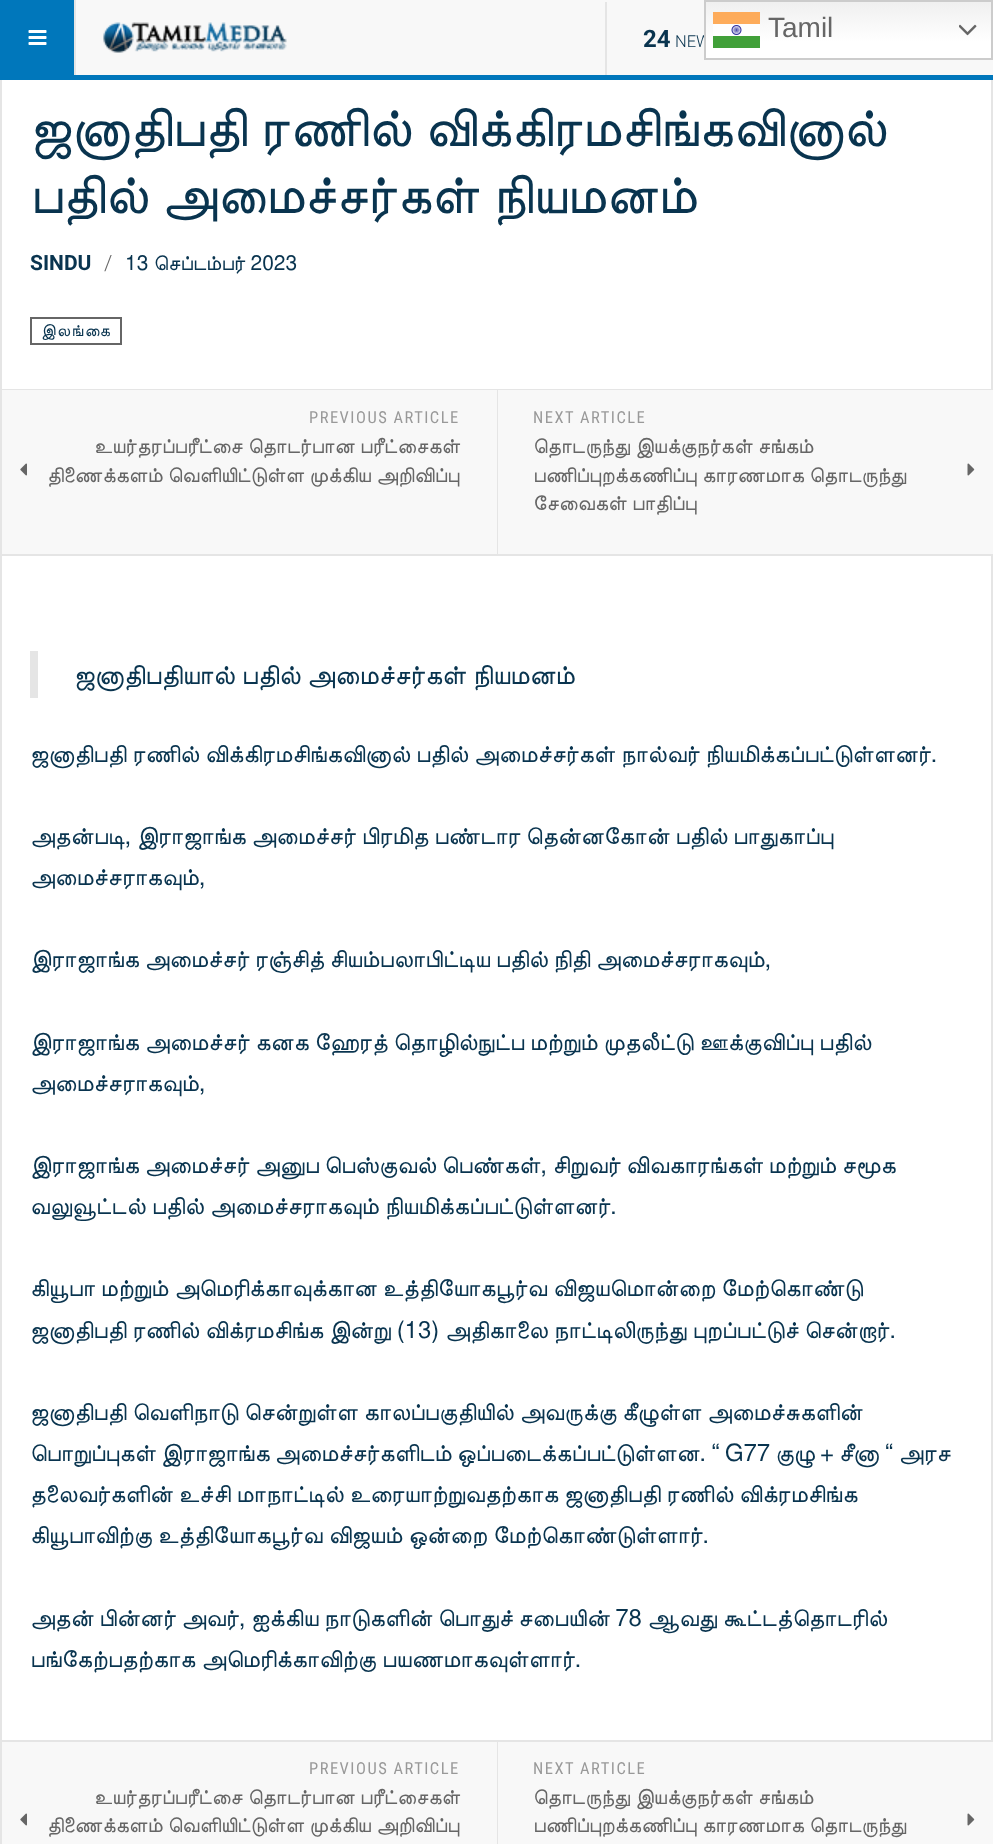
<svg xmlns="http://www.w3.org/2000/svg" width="993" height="1844">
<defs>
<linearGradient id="g1" gradientUnits="userSpaceOnUse" x1="848" y1="0" x2="848" y2="60"><stop offset="0" stop-color="#efefef"/><stop offset="0.7" stop-color="#fff"/></linearGradient>
</defs>
<rect width="100%" height="100%" fill="#fff"/>
<rect x="1" y="57" width="991" height="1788" fill="none" stroke="#e5e5e5" stroke-width="2"/>
<rect x="76" width="917" height="75" fill="#f8f8f8"/>
<rect y="75" width="993" height="5" fill="#07b"/>
<rect width="74" height="75" fill="#07b"/>
<rect x="74" width="2" height="75" fill="#e5e5e5"/>
<image x="28" y="30" width="19" height="15" href="media/1.png"/>
<image x="103" y="22" width="184" height="31" href="media/2.png"/>
<rect x="605" y="2" width="2" height="73" fill="#e5e5e5"/>
<text x="643" y="47" style="font-family:Roboto;font-size:24px;font-weight:bold;fill:#09344f">24</text>
<text x="675" y="47" style="font-family:Roboto;font-size:16.5px;font-weight:300;fill:#09344f">NEW</text>
<rect x="706" y="2" width="285" height="56" fill="url(#g1)"/>
<rect x="705" y="1" width="287" height="58" fill="none" stroke="#ccc" stroke-width="2"/>
<image x="713" y="12" width="47" height="36" href="media/3.png"/>
<text x="768" y="37" style="font-family:Liberation Sans;font-size:28px;fill:#666">Tamil</text>
<image x="959" y="24" width="18" height="12" href="media/4.png"/>
<text x="30" y="146" style="font-family:FreeSans;font-size:54px;fill:#09344f">ஜனாதிபதி ரணில் விக்கிரமசிங்கவினால்</text>
<text x="30" y="213" style="font-family:FreeSans;font-size:54px;fill:#09344f">பதில் அமைச்சர்கள் நியமனம்</text>
<text x="30" y="270" style="font-family:Roboto;font-size:21px;font-weight:bold;fill:#09344f">SINDU</text>
<text x="104" y="270" style="font-family:Roboto;font-size:21px;font-weight:300;fill:#666">/</text>
<text x="125" y="270" style="font-family:FreeSans;font-size:21px;fill:#09344f">13 செப்டம்பர் 2023</text>
<rect x="31" y="318" width="90" height="26" fill="none" stroke="#666" stroke-width="2"/>
<text x="41" y="336" style="font-family:FreeSans;font-size:16.5px;letter-spacing:1.5px;fill:#09344f">இலங்கை</text>
<rect y="389" width="993" height="1" fill="#e5e5e5"/>
<rect y="554" width="993" height="2" fill="#e5e5e5"/>
<rect x="497" y="390" width="1" height="164" fill="#e5e5e5"/>
<rect x="2" y="390" width="495" height="164" fill="#f8f8f8"/>
<text x="309" y="423" style="font-family:Roboto Condensed;font-size:16.5px;letter-spacing:1.5px;fill:#999">PREVIOUS ARTICLE</text>
<text x="94" y="453" style="font-family:FreeSans;font-size:21px;fill:#666">உயர்தரப்பரீட்சை தொடர்பான பரீட்சைகள்</text>
<image x="20" y="463" width="7" height="13" href="media/5.png"/>
<text x="47" y="482" style="font-family:FreeSans;font-size:21px;fill:#666">திணைக்களம் வெளியிட்டுள்ள முக்கிய அறிவிப்பு</text>
<rect x="498" y="390" width="495" height="164" fill="#f8f8f8"/>
<text x="533" y="423" style="font-family:Roboto Condensed;font-size:16.5px;letter-spacing:1.5px;fill:#999">NEXT ARTICLE</text>
<text x="533" y="453" style="font-family:FreeSans;font-size:21px;fill:#666">தொடருந்து இயக்குநர்கள் சங்கம்</text>
<text x="533" y="482" style="font-family:FreeSans;font-size:21px;fill:#666">பணிப்புறக்கணிப்பு காரணமாக தொடருந்து</text>
<image x="967" y="463" width="8" height="13" href="media/6.png"/>
<text x="533" y="510" style="font-family:FreeSans;font-size:21px;fill:#666">சேவைகள் பாதிப்பு</text>
<rect x="30" y="651" width="8" height="47" fill="#e5e5e5"/>
<text x="74" y="684" style="font-family:FreeSans;font-size:27px;fill:#09344f">ஜனாதிபதியால் பதில் அமைச்சர்கள் நியமனம்</text>
<text x="30" y="762" word-spacing="-0.25" style="font-family:FreeSans;font-size:24px;fill:#09344f">ஜனாதிபதி ரணில் விக்கிரமசிங்கவினால் பதில் அமைச்சர்கள் நால்வர் நியமிக்கப்பட்டுள்ளனர்.</text>
<text x="30" y="844" word-spacing="-0.5" style="font-family:FreeSans;font-size:24px;fill:#09344f">அதன்படி, இராஜாங்க அமைச்சர் பிரமித பண்டார தென்னகோன் பதில் பாதுகாப்பு</text>
<text x="30" y="885" style="font-family:FreeSans;font-size:24px;fill:#09344f">அமைச்சராகவும்,</text>
<text x="30" y="967" word-spacing="-0.5" style="font-family:FreeSans;font-size:24px;fill:#09344f">இராஜாங்க அமைச்சர் ரஞ்சித் சியம்பலாபிட்டிய பதில் நிதி அமைச்சராகவும்,</text>
<text x="30" y="1050" word-spacing="-0.25" style="font-family:FreeSans;font-size:24px;fill:#09344f">இராஜாங்க அமைச்சர் கனக ஹேரத் தொழில்நுட்ப மற்றும் முதலீட்டு ஊக்குவிப்பு பதில்</text>
<text x="30" y="1091" style="font-family:FreeSans;font-size:24px;fill:#09344f">அமைச்சராகவும்,</text>
<text x="30" y="1173" word-spacing="-0.5" style="font-family:FreeSans;font-size:24px;fill:#09344f">இராஜாங்க அமைச்சர் அனுப பெஸ்குவல் பெண்கள், சிறுவர் விவகாரங்கள் மற்றும் சமூக</text>
<text x="30" y="1214" style="font-family:FreeSans;font-size:24px;fill:#09344f">வலுவூட்டல் பதில் அமைச்சராகவும் நியமிக்கப்பட்டுள்ளனர்.</text>
<text x="30" y="1296" word-spacing="-0.25" style="font-family:FreeSans;font-size:24px;fill:#09344f">கியூபா மற்றும் அமெரிக்காவுக்கான உத்தியோகபூர்வ விஜயமொன்றை மேற்கொண்டு</text>
<text x="30" y="1338" word-spacing="-0.25" style="font-family:FreeSans;font-size:24px;fill:#09344f">ஜனாதிபதி ரணில் விக்ரமசிங்க இன்று (13) அதிகாலை நாட்டிலிருந்து புறப்பட்டுச் சென்றார்.</text>
<text x="30" y="1420" word-spacing="-0.25" style="font-family:FreeSans;font-size:24px;fill:#09344f">ஜனாதிபதி வெளிநாடு சென்றுள்ள காலப்பகுதியில் அவருக்கு கீழுள்ள அமைச்சுகளின்</text>
<text x="30" y="1461" word-spacing="-1" style="font-family:FreeSans;font-size:24px;fill:#09344f">பொறுப்புகள் இராஜாங்க அமைச்சர்களிடம் ஒப்படைக்கப்பட்டுள்ளன. “ G77 குழு + சீனா “ அரச</text>
<text x="30" y="1502" word-spacing="-0.25" style="font-family:FreeSans;font-size:24px;fill:#09344f">தலைவர்களின் உச்சி மாநாட்டில் உரையாற்றுவதற்காக ஜனாதிபதி ரணில் விக்ரமசிங்க</text>
<text x="30" y="1543" style="font-family:FreeSans;font-size:24px;fill:#09344f">கியூபாவிற்கு உத்தியோகபூர்வ விஜயம் ஒன்றை மேற்கொண்டுள்ளார்.</text>
<text x="30" y="1626" word-spacing="-0.5" style="font-family:FreeSans;font-size:24px;fill:#09344f">அதன் பின்னர் அவர், ஐக்கிய நாடுகளின் பொதுச் சபையின் 78 ஆவது கூட்டத்தொடரில்</text>
<text x="30" y="1667" style="font-family:FreeSans;font-size:24px;fill:#09344f">பங்கேற்பதற்காக அமெரிக்காவிற்கு பயணமாகவுள்ளார்.</text>
<rect y="1740" width="993" height="2" fill="#e5e5e5"/>
<rect x="497" y="1742" width="1" height="102" fill="#e5e5e5"/>
<rect x="2" y="1742" width="495" height="102" fill="#f8f8f8"/>
<text x="309" y="1774" style="font-family:Roboto Condensed;font-size:16.5px;letter-spacing:1.5px;fill:#999">PREVIOUS ARTICLE</text>
<text x="94" y="1804" style="font-family:FreeSans;font-size:21px;fill:#666">உயர்தரப்பரீட்சை தொடர்பான பரீட்சைகள்</text>
<image x="20" y="1813" width="7" height="13" href="media/5.png"/>
<text x="47" y="1832" style="font-family:FreeSans;font-size:21px;fill:#666">திணைக்களம் வெளியிட்டுள்ள முக்கிய அறிவிப்பு</text>
<rect x="498" y="1742" width="495" height="102" fill="#f8f8f8"/>
<text x="533" y="1774" style="font-family:Roboto Condensed;font-size:16.5px;letter-spacing:1.5px;fill:#999">NEXT ARTICLE</text>
<text x="533" y="1804" style="font-family:FreeSans;font-size:21px;fill:#666">தொடருந்து இயக்குநர்கள் சங்கம்</text>
<text x="533" y="1832" style="font-family:FreeSans;font-size:21px;fill:#666">பணிப்புறக்கணிப்பு காரணமாக தொடருந்து</text>
<image x="967" y="1813" width="8" height="13" href="media/6.png"/>
</svg>
